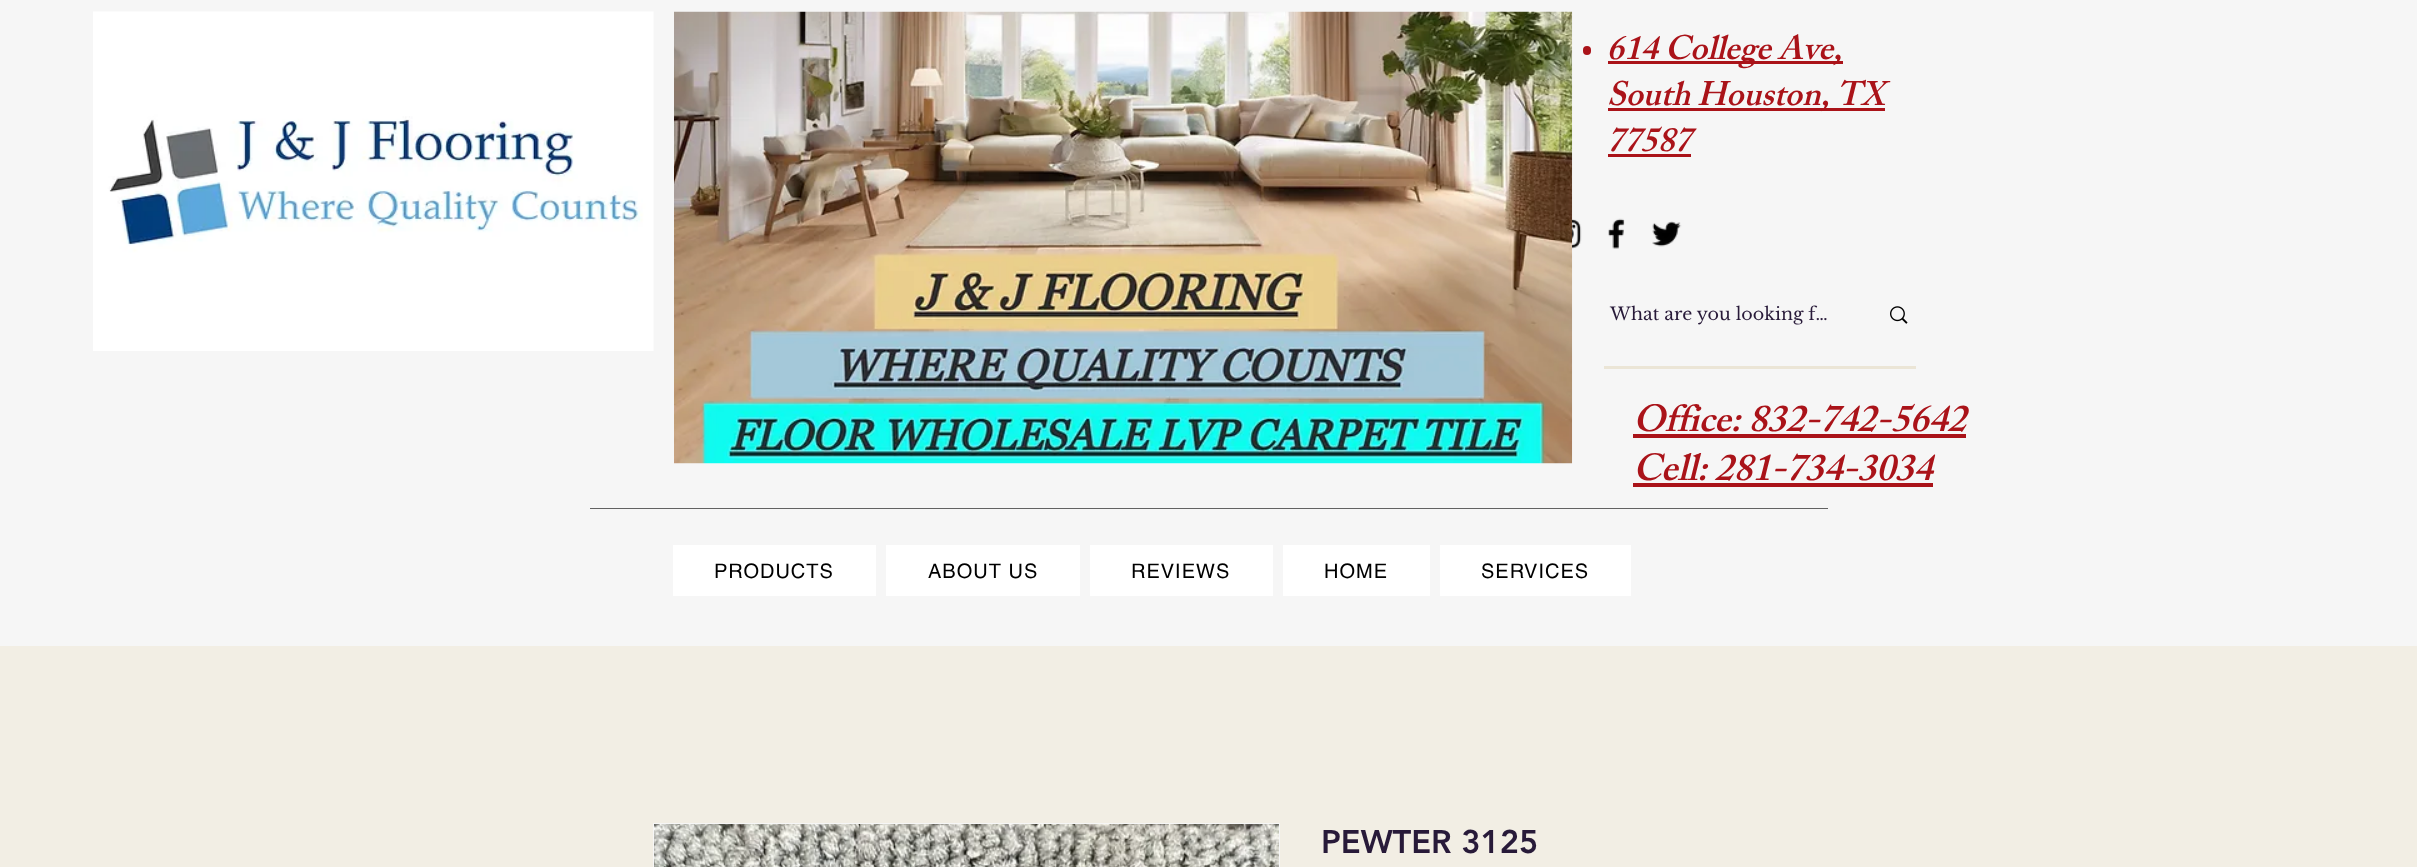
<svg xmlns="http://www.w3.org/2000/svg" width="2417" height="867">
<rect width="100%" height="100%" fill="#f6f6f6"/>
<image x="93" y="11" width="561" height="340" href="media/1.png"/>
<image x="1572" y="219" width="10" height="30" href="media/3.png"/>
<image x="674" y="11" width="899" height="453" href="media/2.png"/>
<rect x="1583" y="46" width="8" height="9" rx="4" fill="#aa1319"/>
<rect x="1608" y="61" width="235" height="3" fill="#aa1319"/>
<text x="1607" y="59" style="font-family:'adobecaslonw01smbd';font-size:33.75px;font-weight:600;font-style:italic;fill:#aa1319">614 College Ave,</text>
<rect x="1608" y="108" width="277" height="3" fill="#aa1319"/>
<text x="1607" y="105" style="font-family:'adobecaslonw01smbd';font-size:33.75px;font-weight:600;font-style:italic;fill:#aa1319">South Houston, TX</text>
<text x="1607" y="151" style="font-family:'adobecaslonw01smbd';font-size:33.75px;font-weight:600;font-style:italic;fill:#aa1319">77587</text>
<rect x="1608" y="154" width="83" height="3" fill="#aa1319"/>
<image x="1608" y="218" width="17" height="31" href="media/4.png"/>
<image x="1652" y="221" width="30" height="26" href="media/5.png"/>
<rect x="1604" y="366" width="312" height="3" fill="#ebe5d6"/>
<text x="1610" y="320" style="font-family:Libre Baskerville;font-size:17.5px;fill:#281a39">What are you looking f…</text>
<image x="1890" y="306" width="18" height="18" href="media/6.png"/>
<text x="1633" y="431" style="font-family:'adobecaslonw01smbd';font-size:37.5px;font-weight:600;font-style:italic;fill:#aa1319">Office: 832-742-5642</text>
<rect x="1633" y="434" width="333" height="4" fill="#aa1319"/>
<text x="1633" y="480" style="font-family:'adobecaslonw01smbd';font-size:37.5px;font-weight:600;font-style:italic;fill:#aa1319">Cell: 281-734-3034</text>
<rect x="1633" y="483" width="300" height="4" fill="#aa1319"/>
<rect x="590" y="508" width="1238" height="1" fill="#626262"/>
<rect x="673" y="545" width="203" height="51" fill="#fff"/>
<text x="714" y="578" style="font-family:helvetica;font-size:20px;letter-spacing:1px;fill:#000">PRODUCTS</text>
<rect x="886" y="545" width="194" height="51" fill="#fff"/>
<text x="928" y="578" style="font-family:helvetica;font-size:20px;letter-spacing:1px;fill:#000">ABOUT US</text>
<rect x="1090" y="545" width="183" height="51" fill="#fff"/>
<text x="1131" y="578" style="font-family:helvetica;font-size:20px;letter-spacing:1px;fill:#000">REVIEWS</text>
<rect x="1283" y="545" width="147" height="51" fill="#fff"/>
<text x="1324" y="578" style="font-family:helvetica;font-size:20px;letter-spacing:1px;fill:#000">HOME</text>
<rect x="1440" y="545" width="191" height="51" fill="#fff"/>
<text x="1481" y="578" style="font-family:helvetica;font-size:20px;letter-spacing:1px;fill:#000">SERVICES</text>
<rect y="646" width="2417" height="221" fill="#f2eee4"/>
<rect x="653.5" y="823.5" width="626" height="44" fill="none" stroke="#f6f6f6"/>
<image x="654" y="824" width="625" height="43" href="media/7.png"/>
<text x="1321" y="853" style="font-family:'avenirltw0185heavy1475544';font-size:32.5px;font-weight:900;fill:#281a39">PEWTER 3125</text>
</svg>
